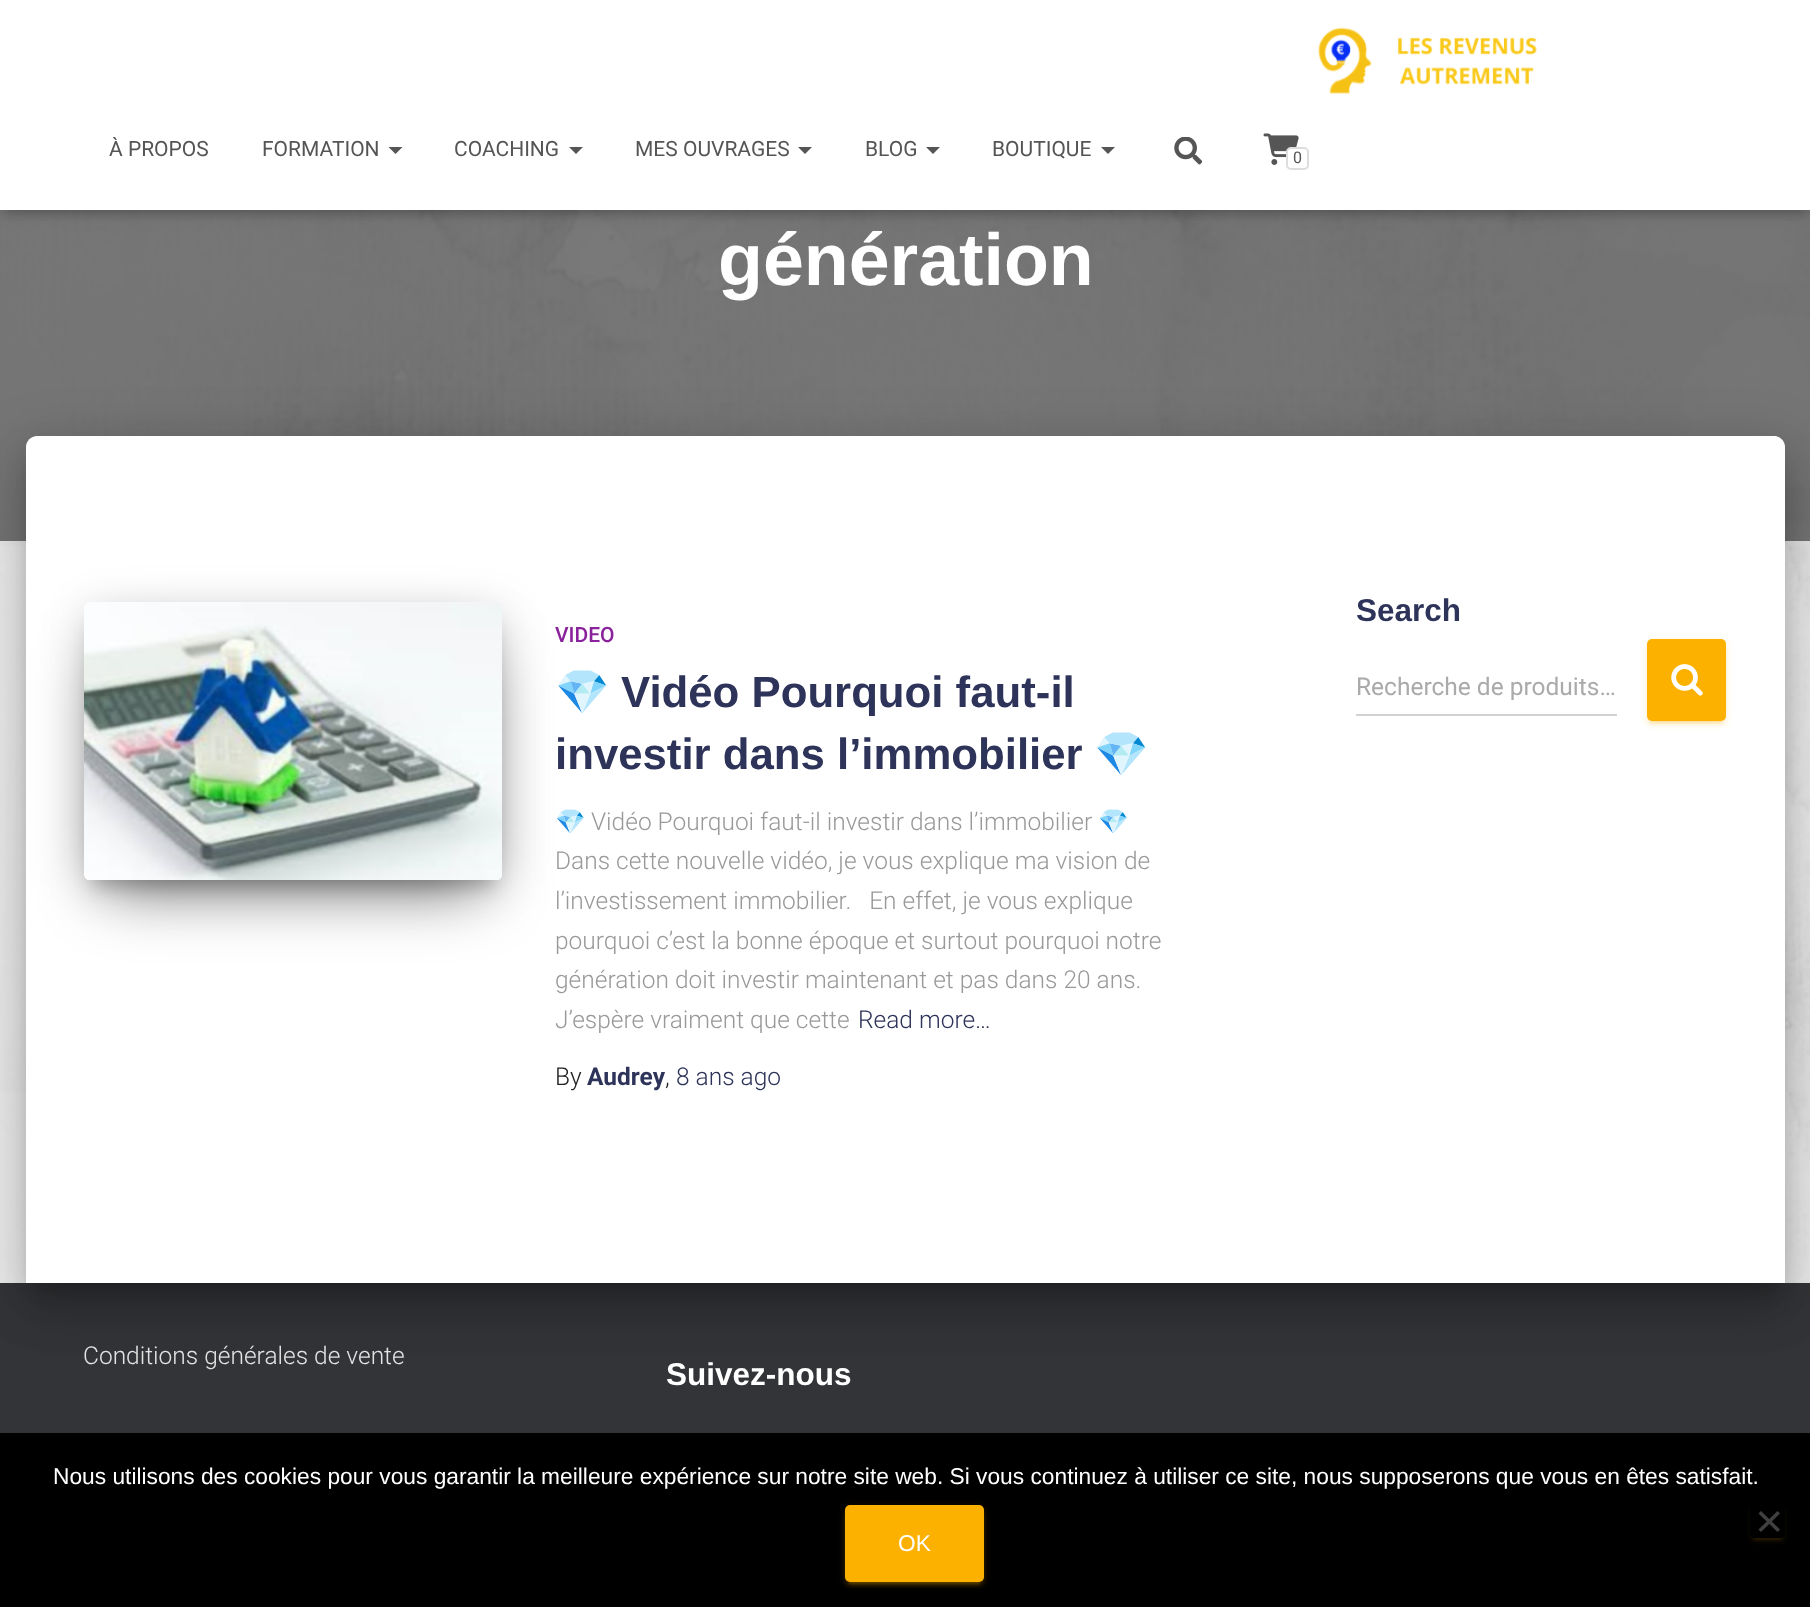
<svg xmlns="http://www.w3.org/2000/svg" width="1810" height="1607">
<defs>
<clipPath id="clip1"><path d="M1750 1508h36v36h-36zm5-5h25c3 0 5 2 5 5v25c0 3-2 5-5 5h-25c-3 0-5-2-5-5v-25c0-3 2-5 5-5z" clip-rule="evenodd"/></clipPath>
<clipPath id="clip2"><path d="M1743 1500h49v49h-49zm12 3h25c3 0 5 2 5 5v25c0 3-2 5-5 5h-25c-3 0-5-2-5-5v-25c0-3 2-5 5-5z" clip-rule="evenodd"/></clipPath>
</defs>
<rect width="100%" height="100%" fill="#fff"/>
<image x="0" y="210" width="1810" height="1073" href="media/1.png"/>
<image x="47" y="210" width="1763" height="331" href="media/5.png"/>
<rect y="210" width="1810" height="331" fill="#00000080"/>
<rect x="4" y="11" width="1804" height="203" fill="#0000001a" filter="blur(4.5px)"/>
<rect y="2" width="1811" height="210" fill="#0000001f" filter="blur(9px)"/>
<rect x="11" y="12" width="1790" height="189" fill="#0000006b" filter="blur(9px)"/>
<rect width="1810" height="210" fill="#fff"/>
<image x="1318" y="27" width="219" height="68" href="media/2.png"/>
<text x="109" y="156" style="font-family:Roboto;font-size:21px;fill:#555">À PROPOS</text>
<text x="262" y="156" style="font-family:Roboto;font-size:21px;fill:#555">FORMATION</text>
<path d="M388.5 147h14l-7 7z" fill="#555"/>
<text x="454" y="156" style="font-family:Roboto;font-size:21px;fill:#555">COACHING</text>
<path d="M569 147h14l-7 7z" fill="#555"/>
<text x="635" y="156" style="font-family:Roboto;font-size:21px;fill:#555">MES OUVRAGES</text>
<path d="M798 147h14l-7 7z" fill="#555"/>
<text x="865" y="156" style="font-family:Roboto;font-size:21px;fill:#555">BLOG</text>
<path d="M926 147h14l-7 7z" fill="#555"/>
<text x="992" y="156" style="font-family:Roboto;font-size:21px;fill:#555">BOUTIQUE</text>
<path d="M1101 147h14l-7 7z" fill="#555"/>
<image x="1174" y="137" width="28" height="28" href="media/3.png"/>
<image x="1263" y="133" width="36" height="32" href="media/4.png"/>
<rect x="1287" y="148" width="21" height="21" rx="4" fill="#fff" stroke="#ddd" stroke-width="2"/>
<text x="1293" y="163" style="font-family:Roboto;font-size:16px;fill:#555">0</text>
<text x="718" y="285" style="font-family:Liberation Sans;font-size:73.5px;font-weight:bold;fill:#fff">génération</text>
<rect y="1283" width="1810" height="150" fill="#323437"/>
<rect x="35" y="459" width="1741" height="829" rx="2" fill="#00000033" filter="blur(9px)"/>
<rect x="18" y="438" width="1776" height="864" rx="19" fill="#0000001f" filter="blur(26px)"/>
<rect x="23" y="460" width="1766" height="854" rx="14" fill="#00000024" filter="blur(21px)"/>
<path d="M37 436h1737c6 0 11 5 11 11v836h-1759v-836c0-6 5-11 11-11z" fill="#fff"/>
<rect x="93" y="625" width="401" height="261" fill="#00000033" filter="blur(9px)"/>
<rect x="84" y="609" width="418" height="278" rx="5" fill="#0000001f" filter="blur(22px)"/>
<rect x="105" y="651" width="376" height="236" fill="#0000008f" filter="blur(33px)"/>
<image x="84" y="602" width="418" height="278" href="media/6.png"/>
<text x="555" y="642" style="font-family:Roboto;font-size:21px;font-weight:500;fill:#89229b">VIDEO</text>
<text x="555" y="707" style="font-family:Noto Color Emoji;font-size:43.75px;font-weight:bold;fill:#2d3359">💎</text>
<text x="621" y="707" style="font-family:Liberation Sans;font-size:43.75px;font-weight:bold;fill:#2d3359">Vidéo Pourquoi faut-il</text>
<text x="555" y="769" style="font-family:Liberation Sans;font-size:43.75px;font-weight:bold;fill:#2d3359">investir dans l’immobilier</text>
<text x="1094" y="769" style="font-family:Noto Color Emoji;font-size:43.75px;font-weight:bold;fill:#2d3359">💎</text>
<text x="555" y="830" style="font-family:Noto Color Emoji;font-size:24.5px;fill:#999">💎</text>
<text x="591" y="830" style="font-family:Roboto;font-size:24.5px;font-weight:300;fill:#999">Vidéo Pourquoi faut-il investir dans l’immobilier</text>
<text x="1098" y="830" style="font-family:Noto Color Emoji;font-size:24.5px;fill:#999">💎</text>
<text x="555" y="869" style="font-family:Roboto;font-size:24.5px;font-weight:300;fill:#999">Dans cette nouvelle vidéo, je vous explique ma vision de</text>
<text x="555" y="909" style="font-family:Roboto;font-size:24.5px;font-weight:300;fill:#999" xml:space="preserve">l’investissement immobilier.   En effet, je vous explique</text>
<text x="555" y="949" style="font-family:Roboto;font-size:24.5px;font-weight:300;fill:#999">pourquoi c’est la bonne époque et surtout pourquoi notre</text>
<text x="555" y="988" style="font-family:Roboto;font-size:24.5px;font-weight:300;fill:#999">génération doit investir maintenant et pas dans 20 ans.</text>
<text x="555" y="1028" style="font-family:Roboto;font-size:24.5px;font-weight:300;fill:#999">J’espère vraiment que cette</text>
<text x="858" y="1028" style="font-family:Roboto;font-size:24.5px;font-weight:300;fill:#2d3359">Read more…</text>
<text x="555" y="1085" style="font-family:Roboto;font-size:24.5px;font-weight:300;fill:#212121">By</text>
<text x="587" y="1085" style="font-family:Roboto;font-size:24.5px;font-weight:bold;fill:#2d3359">Audrey</text>
<text x="665" y="1085" style="font-family:Roboto;font-size:24.5px;font-weight:300;fill:#212121">,</text>
<text x="676" y="1085" style="font-family:Roboto;font-size:24.5px;font-weight:300;fill:#2d3359">8 ans ago</text>
<text x="1356" y="621" style="font-family:Liberation Sans;font-size:31.5px;font-weight:bold;fill:#2d3359">Search</text>
<text x="1356" y="695" style="font-family:Roboto;font-size:24.5px;fill:#aaa">Recherche de produits…</text>
<rect x="1647" y="641" width="79" height="82" rx="5" fill="#fcb0001f" filter="blur(4.5px)"/>
<rect x="1650" y="648" width="72" height="75" rx="2" fill="#fcb00033" filter="blur(1px)"/>
<rect x="1647" y="642" width="79" height="83" rx="5" fill="#fcb00024" filter="blur(2px)"/>
<rect x="1647" y="639" width="79" height="82" rx="5" fill="#fcb000"/>
<image x="1671" y="664" width="32" height="32" href="media/7.png"/>
<rect x="1356" y="714" width="261" height="2" fill="#d2d2d2"/>
<text x="83" y="1364" style="font-family:Roboto;font-size:24.5px;font-weight:300;fill:#e2e3e3">Conditions générales de vente</text>
<text x="666" y="1385" style="font-family:Liberation Sans;font-size:31.5px;font-weight:bold;fill:#fff">Suivez-nous</text>
<rect y="1433" width="1810" height="174" fill="#000"/>
<text x="53" y="1484" style="font-family:Liberation Sans;font-size:22.75px;fill:#fff">Nous utilisons des cookies pour vous garantir la meilleure expérience sur notre site web. Si vous continuez à utiliser ce site, nous supposerons que vous en êtes satisfait.</text>
<rect x="845" y="1507" width="139" height="77" rx="5" fill="#fcb0001f" filter="blur(4.5px)"/>
<rect x="849" y="1514" width="131" height="70" rx="2" fill="#fcb00033" filter="blur(1px)"/>
<rect x="845" y="1509" width="139" height="77" rx="5" fill="#fcb00024" filter="blur(2px)"/>
<rect x="845" y="1505" width="139" height="77" rx="5" fill="#fcb000"/>
<text x="898" y="1551" style="font-family:Liberation Sans;font-size:22.75px;fill:#fff">OK</text>
<g clip-path="url(#clip1)">
<rect x="1754" y="1512" width="28" height="28" rx="2" fill="#7e580033" filter="blur(1px)"/>
</g>
<g clip-path="url(#clip2)">
<rect x="1750" y="1507" width="35" height="35" rx="5" fill="#7e580024" filter="blur(2px)"/>
</g>
<path d="M1777.5 1511l2.5 2.5l-19 18.5l-2.5-2.5z" fill="#404040"/>
<path d="M1758.5 1513.5l2.5-2.5l19 18.5l-2.5 2.5z" fill="#404040"/>
</svg>
